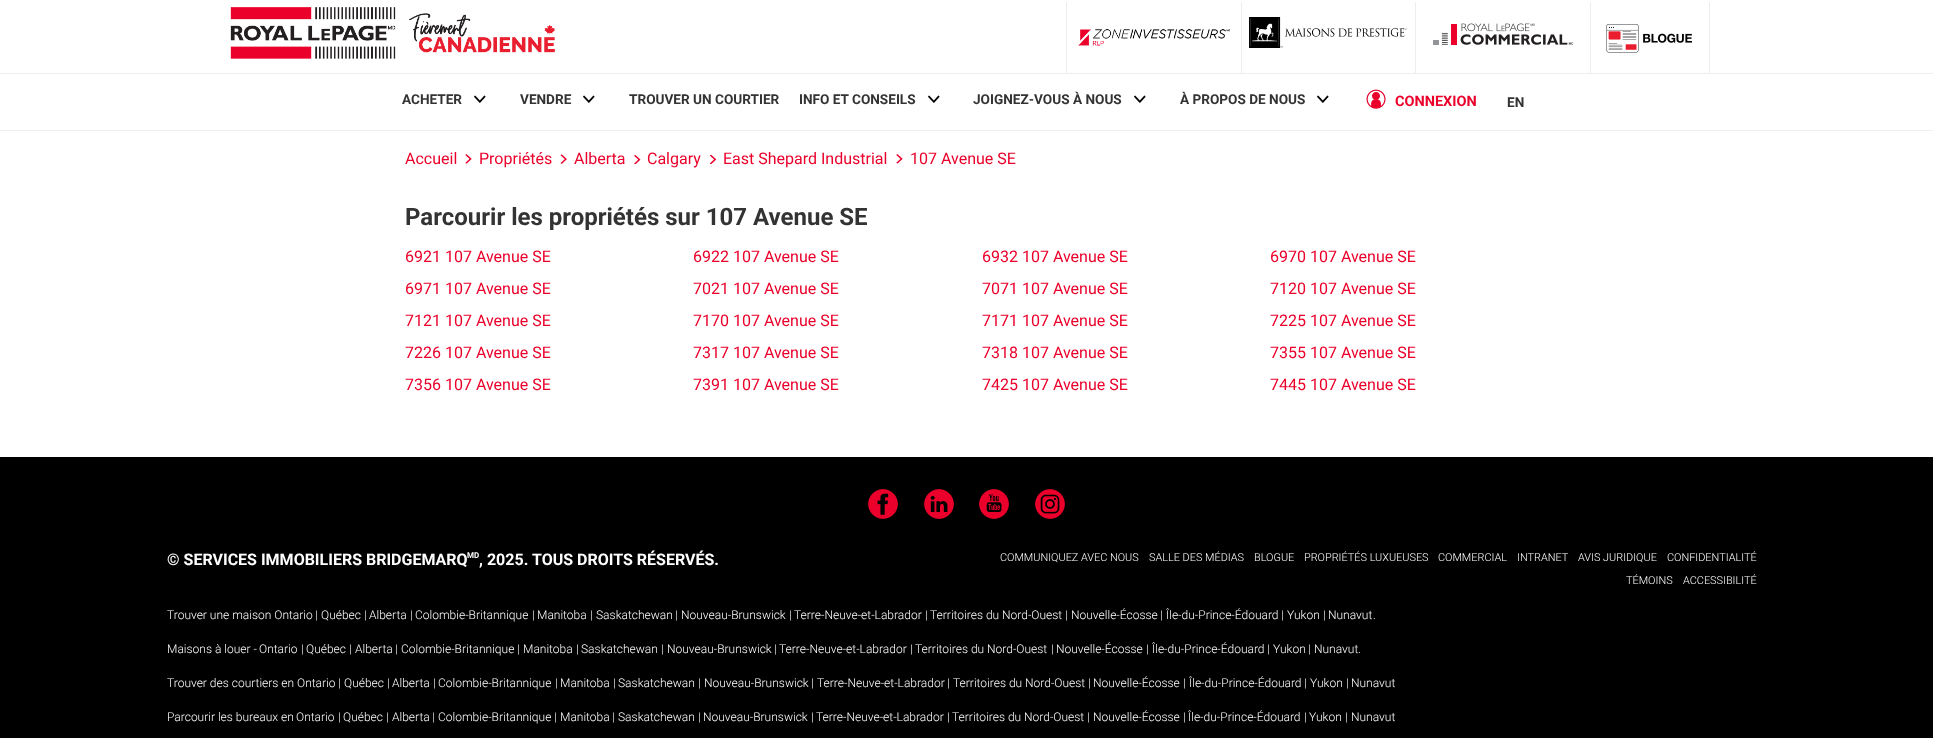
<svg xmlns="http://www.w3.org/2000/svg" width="1933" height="738">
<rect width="100%" height="100%" fill="#fff"/>
<image x="230" y="7" width="325" height="52" href="media/1.png"/>
<rect x="1066" y="2" width="1" height="71" fill="#eee"/>
<image x="1078" y="29" width="153" height="17" href="media/2.png"/>
<rect x="1241" y="2" width="1" height="71" fill="#eee"/>
<image x="1249" y="17" width="158" height="31" href="media/3.png"/>
<rect x="1415" y="2" width="1" height="71" fill="#eee"/>
<image x="1433" y="23" width="141" height="22" href="media/4.png"/>
<rect x="1709" y="2" width="1" height="71" fill="#eee"/>
<rect x="1590" y="2" width="1" height="71" fill="#eee"/>
<image x="1606" y="24" width="86" height="29" href="media/5.png"/>
<rect y="73" width="1933" height="1" fill="#eee"/>
<rect y="130" width="1933" height="1" fill="#eee"/>
<text x="402" y="104" style="font-family:Roboto;font-size:13.6px;font-weight:bold;fill:#333">ACHETER</text>
<image x="474" y="95" width="12" height="8" href="media/6.png"/>
<text x="520" y="104" style="font-family:Roboto;font-size:13.6px;font-weight:bold;fill:#333">VENDRE</text>
<image x="583" y="95" width="12" height="8" href="media/6.png"/>
<text x="629" y="104" style="font-family:Roboto;font-size:13.6px;font-weight:bold;fill:#333">TROUVER UN COURTIER</text>
<text x="799" y="104" style="font-family:Roboto;font-size:13.6px;font-weight:bold;fill:#333">INFO ET CONSEILS</text>
<image x="928" y="95" width="12" height="8" href="media/6.png"/>
<text x="973" y="104" style="font-family:Roboto;font-size:13.6px;font-weight:bold;fill:#333">JOIGNEZ-VOUS À NOUS</text>
<image x="1134" y="95" width="12" height="8" href="media/6.png"/>
<text x="1180" y="104" style="font-family:Roboto;font-size:13.6px;font-weight:bold;fill:#333">À PROPOS DE NOUS</text>
<image x="1317" y="95" width="12" height="8" href="media/6.png"/>
<image x="1366" y="89" width="20" height="20" href="media/7.png"/>
<text x="1395" y="106" style="font-family:Roboto;font-size:14.5px;font-weight:bold;fill:#ea002a">CONNEXION</text>
<text x="1507" y="107" style="font-family:Roboto;font-size:13.6px;font-weight:bold;fill:#333">EN</text>
<text x="405" y="164" style="font-family:Roboto;font-size:16px;fill:#ea002a">Accueil</text>
<image x="465" y="154" width="7" height="10" href="media/8.png"/>
<text x="479" y="164" style="font-family:Roboto;font-size:16px;fill:#ea002a">Propriétés</text>
<image x="560" y="154" width="7" height="10" href="media/9.png"/>
<text x="574" y="164" style="font-family:Roboto;font-size:16px;fill:#ea002a">Alberta</text>
<image x="634" y="155" width="7" height="9" href="media/10.png"/>
<text x="647" y="164" style="font-family:Roboto;font-size:16px;fill:#ea002a">Calgary</text>
<image x="710" y="154" width="7" height="10" href="media/11.png"/>
<text x="723" y="164" style="font-family:Roboto;font-size:16px;fill:#ea002a">East Shepard Industrial</text>
<image x="896" y="154" width="7" height="10" href="media/12.png"/>
<text x="910" y="164" style="font-family:Roboto;font-size:16px;fill:#ea002a">107 Avenue SE</text>
<text x="405" y="225" style="font-family:Roboto;font-size:24px;font-weight:bold;fill:#333">Parcourir les propriétés sur 107 Avenue SE</text>
<text x="405" y="262" style="font-family:Roboto;font-size:16px;fill:#ea002a">6921 107 Avenue SE</text>
<text x="693" y="262" style="font-family:Roboto;font-size:16px;fill:#ea002a">6922 107 Avenue SE</text>
<text x="982" y="262" style="font-family:Roboto;font-size:16px;fill:#ea002a">6932 107 Avenue SE</text>
<text x="1270" y="262" style="font-family:Roboto;font-size:16px;fill:#ea002a">6970 107 Avenue SE</text>
<text x="405" y="294" style="font-family:Roboto;font-size:16px;fill:#ea002a">6971 107 Avenue SE</text>
<text x="693" y="294" style="font-family:Roboto;font-size:16px;fill:#ea002a">7021 107 Avenue SE</text>
<text x="982" y="294" style="font-family:Roboto;font-size:16px;fill:#ea002a">7071 107 Avenue SE</text>
<text x="1270" y="294" style="font-family:Roboto;font-size:16px;fill:#ea002a">7120 107 Avenue SE</text>
<text x="405" y="326" style="font-family:Roboto;font-size:16px;fill:#ea002a">7121 107 Avenue SE</text>
<text x="693" y="326" style="font-family:Roboto;font-size:16px;fill:#ea002a">7170 107 Avenue SE</text>
<text x="982" y="326" style="font-family:Roboto;font-size:16px;fill:#ea002a">7171 107 Avenue SE</text>
<text x="1270" y="326" style="font-family:Roboto;font-size:16px;fill:#ea002a">7225 107 Avenue SE</text>
<text x="405" y="358" style="font-family:Roboto;font-size:16px;fill:#ea002a">7226 107 Avenue SE</text>
<text x="693" y="358" style="font-family:Roboto;font-size:16px;fill:#ea002a">7317 107 Avenue SE</text>
<text x="982" y="358" style="font-family:Roboto;font-size:16px;fill:#ea002a">7318 107 Avenue SE</text>
<text x="1270" y="358" style="font-family:Roboto;font-size:16px;fill:#ea002a">7355 107 Avenue SE</text>
<text x="405" y="390" style="font-family:Roboto;font-size:16px;fill:#ea002a">7356 107 Avenue SE</text>
<text x="693" y="390" style="font-family:Roboto;font-size:16px;fill:#ea002a">7391 107 Avenue SE</text>
<text x="982" y="390" style="font-family:Roboto;font-size:16px;fill:#ea002a">7425 107 Avenue SE</text>
<text x="1270" y="390" style="font-family:Roboto;font-size:16px;fill:#ea002a">7445 107 Avenue SE</text>
<rect y="457" width="1933" height="281" fill="#000"/>
<image x="868" y="489" width="30" height="30" href="media/13.png"/>
<image x="924" y="489" width="30" height="30" href="media/14.png"/>
<image x="979" y="489" width="30" height="30" href="media/15.png"/>
<image x="1035" y="489" width="30" height="30" href="media/16.png"/>
<text x="167" y="565" style="font-family:Roboto;font-size:16px;font-weight:bold;fill:#fff">© SERVICES IMMOBILIERS BRIDGEMARQ</text>
<text x="467" y="558" style="font-family:Roboto;font-size:8px;font-weight:bold;fill:#fff">MD</text>
<text x="479" y="565" style="font-family:Roboto;font-size:16px;font-weight:bold;fill:#fff">, 2025.</text>
<text x="532" y="565" style="font-family:Roboto;font-size:16px;font-weight:bold;fill:#fff">TOUS DROITS RÉSERVÉS.</text>
<text x="1000" y="561" style="font-family:Roboto;font-size:10.9px;font-weight:300;fill:#fff">COMMUNIQUEZ AVEC NOUS</text>
<text x="1149" y="561" style="font-family:Roboto;font-size:10.9px;font-weight:300;fill:#fff">SALLE DES MÉDIAS</text>
<text x="1254" y="561" style="font-family:Roboto;font-size:10.9px;font-weight:300;fill:#fff">BLOGUE</text>
<text x="1304" y="561" style="font-family:Roboto;font-size:10.9px;font-weight:300;fill:#fff">PROPRIÉTÉS LUXUEUSES</text>
<text x="1438" y="561" style="font-family:Roboto;font-size:10.9px;font-weight:300;fill:#fff">COMMERCIAL</text>
<text x="1517" y="561" style="font-family:Roboto;font-size:10.9px;font-weight:300;fill:#fff">INTRANET</text>
<text x="1578" y="561" style="font-family:Roboto;font-size:10.9px;font-weight:300;fill:#fff">AVIS JURIDIQUE</text>
<text x="1667" y="561" style="font-family:Roboto;font-size:10.9px;font-weight:300;fill:#fff">CONFIDENTIALITÉ</text>
<text x="1626" y="584" style="font-family:Roboto;font-size:10.9px;font-weight:300;fill:#fff">TÉMOINS</text>
<text x="1683" y="584" style="font-family:Roboto;font-size:10.9px;font-weight:300;fill:#fff">ACCESSIBILITÉ</text>
<text x="167" y="619" style="font-family:Roboto;font-size:12px;font-weight:300;fill:#fff">Trouver une maison Ontario</text>
<text x="315" y="619" style="font-family:Roboto;font-size:12px;font-weight:300;fill:#fff">|</text>
<text x="321" y="619" style="font-family:Roboto;font-size:12px;font-weight:300;fill:#fff">Québec</text>
<text x="364" y="619" style="font-family:Roboto;font-size:12px;font-weight:300;fill:#fff">|</text>
<text x="369" y="619" style="font-family:Roboto;font-size:12px;font-weight:300;fill:#fff">Alberta</text>
<text x="410" y="619" style="font-family:Roboto;font-size:12px;font-weight:300;fill:#fff">|</text>
<text x="415" y="619" style="font-family:Roboto;font-size:12px;font-weight:300;fill:#fff">Colombie-Britannique</text>
<text x="532" y="619" style="font-family:Roboto;font-size:12px;font-weight:300;fill:#fff">|</text>
<text x="537" y="619" style="font-family:Roboto;font-size:12px;font-weight:300;fill:#fff">Manitoba</text>
<text x="590" y="619" style="font-family:Roboto;font-size:12px;font-weight:300;fill:#fff">|</text>
<text x="596" y="619" style="font-family:Roboto;font-size:12px;font-weight:300;fill:#fff">Saskatchewan</text>
<text x="675" y="619" style="font-family:Roboto;font-size:12px;font-weight:300;fill:#fff">|</text>
<text x="681" y="619" style="font-family:Roboto;font-size:12px;font-weight:300;fill:#fff">Nouveau-Brunswick</text>
<text x="789" y="619" style="font-family:Roboto;font-size:12px;font-weight:300;fill:#fff">|</text>
<text x="794" y="619" style="font-family:Roboto;font-size:12px;font-weight:300;fill:#fff">Terre-Neuve-et-Labrador</text>
<text x="925" y="619" style="font-family:Roboto;font-size:12px;font-weight:300;fill:#fff">|</text>
<text x="930" y="619" style="font-family:Roboto;font-size:12px;font-weight:300;fill:#fff">Territoires du Nord-Ouest</text>
<text x="1065" y="619" style="font-family:Roboto;font-size:12px;font-weight:300;fill:#fff">|</text>
<text x="1071" y="619" style="font-family:Roboto;font-size:12px;font-weight:300;fill:#fff">Nouvelle-Écosse</text>
<text x="1160" y="619" style="font-family:Roboto;font-size:12px;font-weight:300;fill:#fff">|</text>
<text x="1166" y="619" style="font-family:Roboto;font-size:12px;font-weight:300;fill:#fff">Île-du-Prince-Édouard</text>
<text x="1281" y="619" style="font-family:Roboto;font-size:12px;font-weight:300;fill:#fff">|</text>
<text x="1287" y="619" style="font-family:Roboto;font-size:12px;font-weight:300;fill:#fff">Yukon</text>
<text x="1323" y="619" style="font-family:Roboto;font-size:12px;font-weight:300;fill:#fff">|</text>
<text x="1328" y="619" style="font-family:Roboto;font-size:12px;font-weight:300;fill:#fff">Nunavut</text>
<text x="1373" y="619" style="font-family:Roboto;font-size:12px;font-weight:300;fill:#fff">.</text>
<text x="167" y="653" style="font-family:Roboto;font-size:12px;font-weight:300;fill:#fff">Maisons à louer -</text>
<text x="259" y="653" style="font-family:Roboto;font-size:12px;font-weight:300;fill:#fff">Ontario</text>
<text x="301" y="653" style="font-family:Roboto;font-size:12px;font-weight:300;fill:#fff">|</text>
<text x="306" y="653" style="font-family:Roboto;font-size:12px;font-weight:300;fill:#fff">Québec</text>
<text x="349" y="653" style="font-family:Roboto;font-size:12px;font-weight:300;fill:#fff">|</text>
<text x="355" y="653" style="font-family:Roboto;font-size:12px;font-weight:300;fill:#fff">Alberta</text>
<text x="395" y="653" style="font-family:Roboto;font-size:12px;font-weight:300;fill:#fff">|</text>
<text x="401" y="653" style="font-family:Roboto;font-size:12px;font-weight:300;fill:#fff">Colombie-Britannique</text>
<text x="517" y="653" style="font-family:Roboto;font-size:12px;font-weight:300;fill:#fff">|</text>
<text x="523" y="653" style="font-family:Roboto;font-size:12px;font-weight:300;fill:#fff">Manitoba</text>
<text x="576" y="653" style="font-family:Roboto;font-size:12px;font-weight:300;fill:#fff">|</text>
<text x="581" y="653" style="font-family:Roboto;font-size:12px;font-weight:300;fill:#fff">Saskatchewan</text>
<text x="661" y="653" style="font-family:Roboto;font-size:12px;font-weight:300;fill:#fff">|</text>
<text x="667" y="653" style="font-family:Roboto;font-size:12px;font-weight:300;fill:#fff">Nouveau-Brunswick</text>
<text x="774" y="653" style="font-family:Roboto;font-size:12px;font-weight:300;fill:#fff">|</text>
<text x="779" y="653" style="font-family:Roboto;font-size:12px;font-weight:300;fill:#fff">Terre-Neuve-et-Labrador</text>
<text x="910" y="653" style="font-family:Roboto;font-size:12px;font-weight:300;fill:#fff">|</text>
<text x="915" y="653" style="font-family:Roboto;font-size:12px;font-weight:300;fill:#fff">Territoires du Nord-Ouest</text>
<text x="1051" y="653" style="font-family:Roboto;font-size:12px;font-weight:300;fill:#fff">|</text>
<text x="1056" y="653" style="font-family:Roboto;font-size:12px;font-weight:300;fill:#fff">Nouvelle-Écosse</text>
<text x="1146" y="653" style="font-family:Roboto;font-size:12px;font-weight:300;fill:#fff">|</text>
<text x="1152" y="653" style="font-family:Roboto;font-size:12px;font-weight:300;fill:#fff">Île-du-Prince-Édouard</text>
<text x="1267" y="653" style="font-family:Roboto;font-size:12px;font-weight:300;fill:#fff">|</text>
<text x="1273" y="653" style="font-family:Roboto;font-size:12px;font-weight:300;fill:#fff">Yukon</text>
<text x="1308" y="653" style="font-family:Roboto;font-size:12px;font-weight:300;fill:#fff">|</text>
<text x="1314" y="653" style="font-family:Roboto;font-size:12px;font-weight:300;fill:#fff">Nunavut</text>
<text x="1358" y="653" style="font-family:Roboto;font-size:12px;font-weight:300;fill:#fff">.</text>
<text x="167" y="687" style="font-family:Roboto;font-size:12px;font-weight:300;fill:#fff">Trouver des courtiers en</text>
<text x="297" y="687" style="font-family:Roboto;font-size:12px;font-weight:300;fill:#fff">Ontario</text>
<text x="338" y="687" style="font-family:Roboto;font-size:12px;font-weight:300;fill:#fff">|</text>
<text x="344" y="687" style="font-family:Roboto;font-size:12px;font-weight:300;fill:#fff">Québec</text>
<text x="387" y="687" style="font-family:Roboto;font-size:12px;font-weight:300;fill:#fff">|</text>
<text x="392" y="687" style="font-family:Roboto;font-size:12px;font-weight:300;fill:#fff">Alberta</text>
<text x="433" y="687" style="font-family:Roboto;font-size:12px;font-weight:300;fill:#fff">|</text>
<text x="438" y="687" style="font-family:Roboto;font-size:12px;font-weight:300;fill:#fff">Colombie-Britannique</text>
<text x="555" y="687" style="font-family:Roboto;font-size:12px;font-weight:300;fill:#fff">|</text>
<text x="560" y="687" style="font-family:Roboto;font-size:12px;font-weight:300;fill:#fff">Manitoba</text>
<text x="613" y="687" style="font-family:Roboto;font-size:12px;font-weight:300;fill:#fff">|</text>
<text x="618" y="687" style="font-family:Roboto;font-size:12px;font-weight:300;fill:#fff">Saskatchewan</text>
<text x="698" y="687" style="font-family:Roboto;font-size:12px;font-weight:300;fill:#fff">|</text>
<text x="704" y="687" style="font-family:Roboto;font-size:12px;font-weight:300;fill:#fff">Nouveau-Brunswick</text>
<text x="811" y="687" style="font-family:Roboto;font-size:12px;font-weight:300;fill:#fff">|</text>
<text x="817" y="687" style="font-family:Roboto;font-size:12px;font-weight:300;fill:#fff">Terre-Neuve-et-Labrador</text>
<text x="947" y="687" style="font-family:Roboto;font-size:12px;font-weight:300;fill:#fff">|</text>
<text x="953" y="687" style="font-family:Roboto;font-size:12px;font-weight:300;fill:#fff">Territoires du Nord-Ouest</text>
<text x="1088" y="687" style="font-family:Roboto;font-size:12px;font-weight:300;fill:#fff">|</text>
<text x="1093" y="687" style="font-family:Roboto;font-size:12px;font-weight:300;fill:#fff">Nouvelle-Écosse</text>
<text x="1183" y="687" style="font-family:Roboto;font-size:12px;font-weight:300;fill:#fff">|</text>
<text x="1189" y="687" style="font-family:Roboto;font-size:12px;font-weight:300;fill:#fff">Île-du-Prince-Édouard</text>
<text x="1304" y="687" style="font-family:Roboto;font-size:12px;font-weight:300;fill:#fff">|</text>
<text x="1310" y="687" style="font-family:Roboto;font-size:12px;font-weight:300;fill:#fff">Yukon</text>
<text x="1346" y="687" style="font-family:Roboto;font-size:12px;font-weight:300;fill:#fff">|</text>
<text x="1351" y="687" style="font-family:Roboto;font-size:12px;font-weight:300;fill:#fff">Nunavut</text>
<text x="167" y="721" style="font-family:Roboto;font-size:12px;font-weight:300;fill:#fff">Parcourir les bureaux en</text>
<text x="296" y="721" style="font-family:Roboto;font-size:12px;font-weight:300;fill:#fff">Ontario</text>
<text x="338" y="721" style="font-family:Roboto;font-size:12px;font-weight:300;fill:#fff">|</text>
<text x="343" y="721" style="font-family:Roboto;font-size:12px;font-weight:300;fill:#fff">Québec</text>
<text x="386" y="721" style="font-family:Roboto;font-size:12px;font-weight:300;fill:#fff">|</text>
<text x="392" y="721" style="font-family:Roboto;font-size:12px;font-weight:300;fill:#fff">Alberta</text>
<text x="432" y="721" style="font-family:Roboto;font-size:12px;font-weight:300;fill:#fff">|</text>
<text x="438" y="721" style="font-family:Roboto;font-size:12px;font-weight:300;fill:#fff">Colombie-Britannique</text>
<text x="554" y="721" style="font-family:Roboto;font-size:12px;font-weight:300;fill:#fff">|</text>
<text x="560" y="721" style="font-family:Roboto;font-size:12px;font-weight:300;fill:#fff">Manitoba</text>
<text x="612" y="721" style="font-family:Roboto;font-size:12px;font-weight:300;fill:#fff">|</text>
<text x="618" y="721" style="font-family:Roboto;font-size:12px;font-weight:300;fill:#fff">Saskatchewan</text>
<text x="698" y="721" style="font-family:Roboto;font-size:12px;font-weight:300;fill:#fff">|</text>
<text x="703" y="721" style="font-family:Roboto;font-size:12px;font-weight:300;fill:#fff">Nouveau-Brunswick</text>
<text x="811" y="721" style="font-family:Roboto;font-size:12px;font-weight:300;fill:#fff">|</text>
<text x="816" y="721" style="font-family:Roboto;font-size:12px;font-weight:300;fill:#fff">Terre-Neuve-et-Labrador</text>
<text x="947" y="721" style="font-family:Roboto;font-size:12px;font-weight:300;fill:#fff">|</text>
<text x="952" y="721" style="font-family:Roboto;font-size:12px;font-weight:300;fill:#fff">Territoires du Nord-Ouest</text>
<text x="1087" y="721" style="font-family:Roboto;font-size:12px;font-weight:300;fill:#fff">|</text>
<text x="1093" y="721" style="font-family:Roboto;font-size:12px;font-weight:300;fill:#fff">Nouvelle-Écosse</text>
<text x="1183" y="721" style="font-family:Roboto;font-size:12px;font-weight:300;fill:#fff">|</text>
<text x="1188" y="721" style="font-family:Roboto;font-size:12px;font-weight:300;fill:#fff">Île-du-Prince-Édouard</text>
<text x="1304" y="721" style="font-family:Roboto;font-size:12px;font-weight:300;fill:#fff">|</text>
<text x="1309" y="721" style="font-family:Roboto;font-size:12px;font-weight:300;fill:#fff">Yukon</text>
<text x="1345" y="721" style="font-family:Roboto;font-size:12px;font-weight:300;fill:#fff">|</text>
<text x="1351" y="721" style="font-family:Roboto;font-size:12px;font-weight:300;fill:#fff">Nunavut</text>
</svg>
